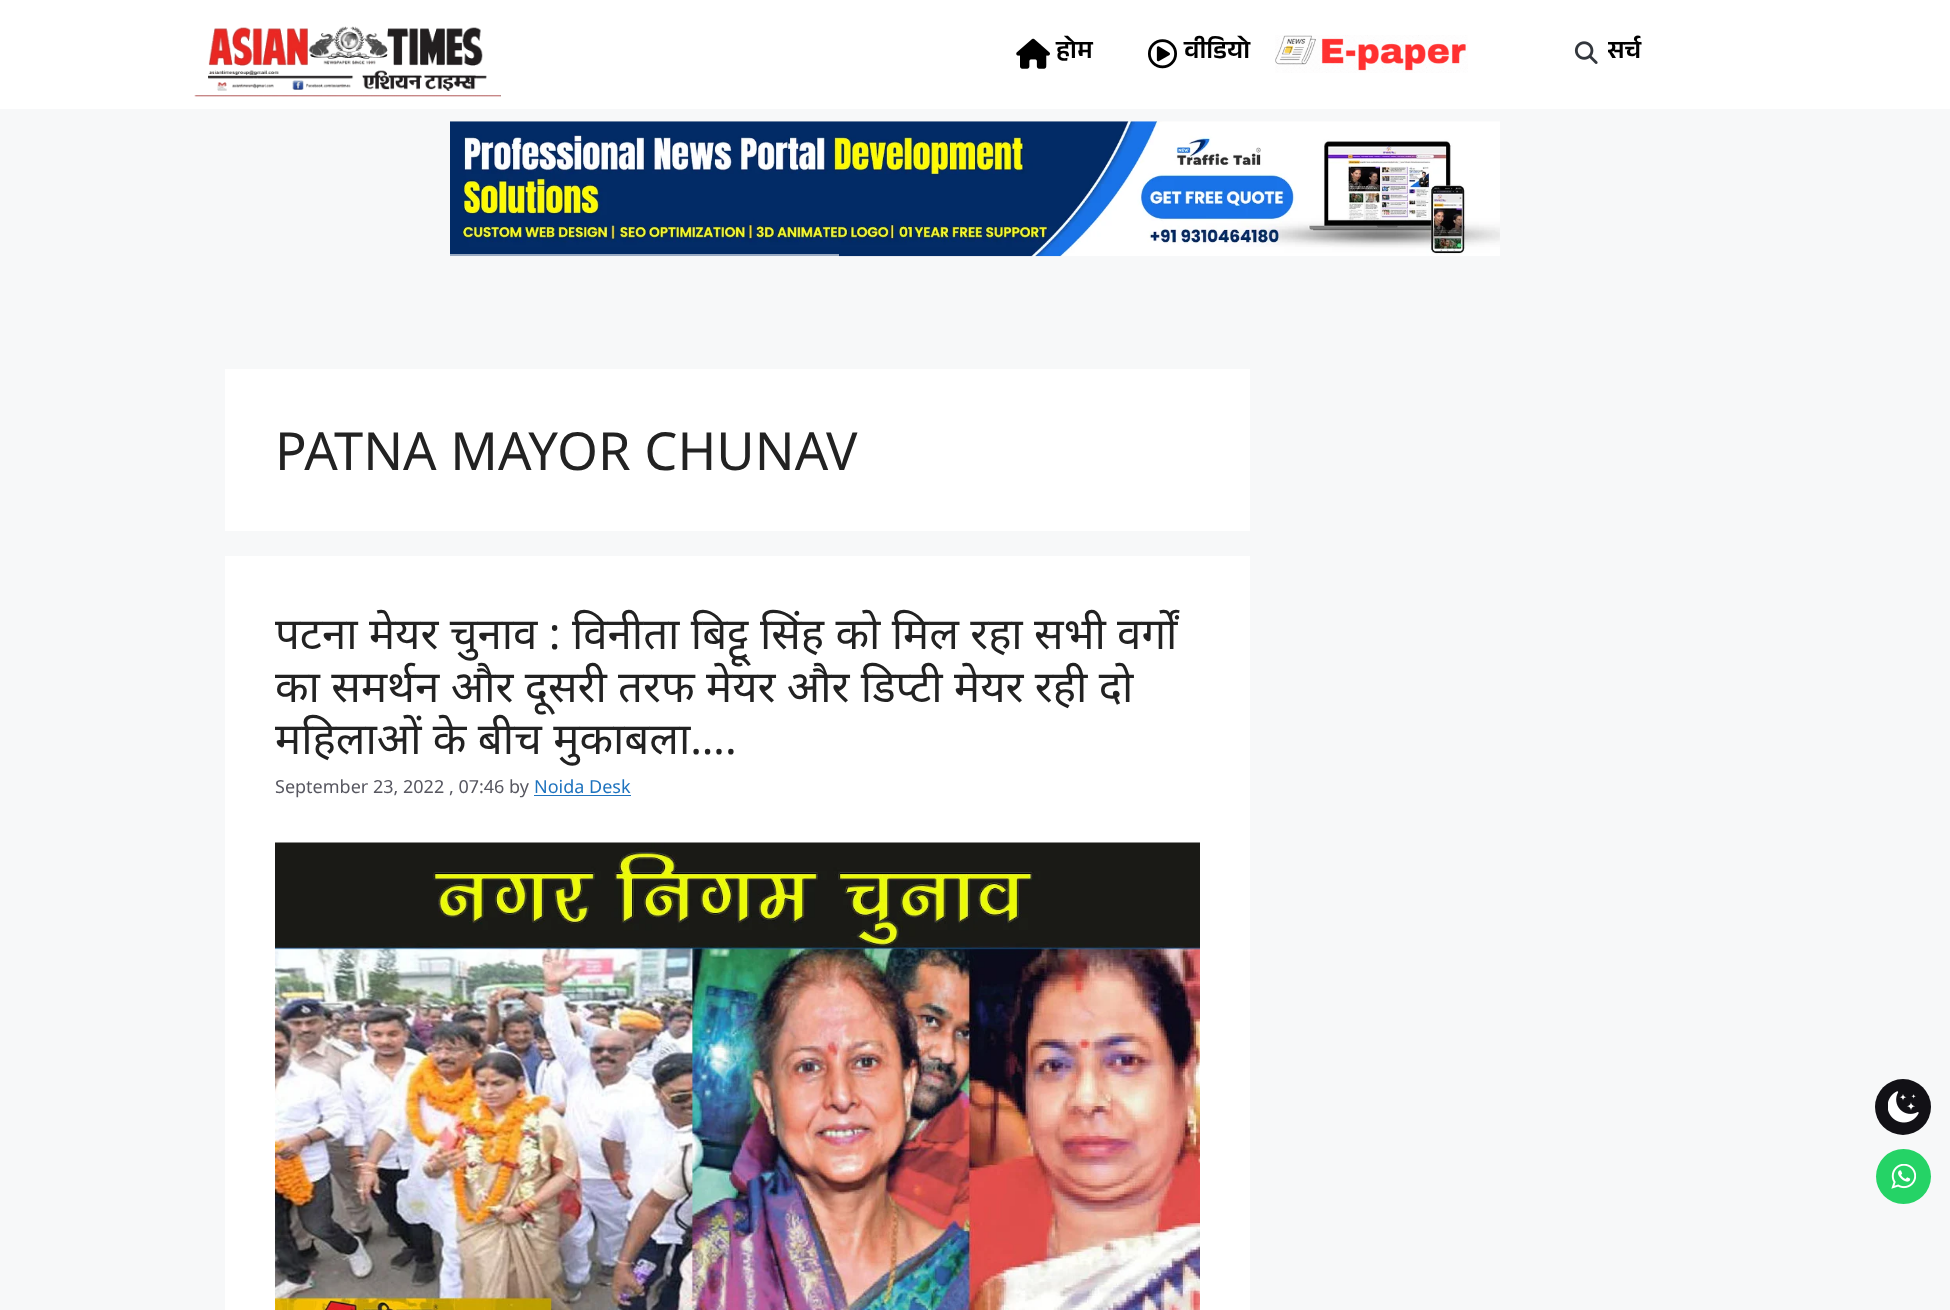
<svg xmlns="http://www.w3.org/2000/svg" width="1950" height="1310">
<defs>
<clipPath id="clip1"><rect x="1608" y="35" width="113" height="38"/></clipPath>
</defs>
<rect width="100%" height="100%" fill="#f7f8f9"/>
<rect width="1950" height="109" fill="#fff"/>
<image x="194" y="26" width="307" height="71" href="media/1.png"/>
<text x="1056" y="58" style="font-family:Anek Devanagari;font-size:25px;font-weight:600;fill:#000">होम</text>
<image x="1016" y="38" width="34" height="31" href="media/2.png"/>
<image x="1148" y="39" width="29" height="30" href="media/3.png"/>
<text x="1184" y="58" style="font-family:Anek Devanagari;font-size:25px;font-weight:600;fill:#000">वीडियो</text>
<image x="1275" y="35" width="193" height="38" href="media/4.png"/>
<image x="1574" y="41" width="24" height="23" href="media/5.png"/>
<g clip-path="url(#clip1)">
<text x="1607" y="58" style="font-family:Anek Devanagari;font-size:25px;font-weight:600;fill:#000">सर्च</text>
</g>
<image x="450" y="121" width="1050" height="136" href="media/6.png"/>
<rect x="450" y="254" width="389" height="3" fill="#ffffff99"/>
<rect x="225" y="369" width="1025" height="162" fill="#fff"/>
<text x="275" y="470" style="font-family:Noto Sans;font-size:52.5px;fill:#222">PATNA MAYOR CHUNAV</text>
<rect x="225" y="556" width="1025" height="754" fill="#fff"/>
<text x="275" y="649" style="font-family:Noto Sans;font-size:43.75px;fill:#222">पटना मेयर चुनाव : विनीता बिट्टू सिंह को मिल रहा सभी वर्गों</text>
<text x="275" y="702" style="font-family:Noto Sans;font-size:43.75px;fill:#222">का समर्थन और दूसरी तरफ मेयर और डिप्टी मेयर रही दो</text>
<text x="275" y="754" style="font-family:Noto Sans;font-size:43.75px;fill:#222">महिलाओं के बीच मुकाबला….</text>
<text x="275" y="793" style="font-family:Noto Sans;font-size:18px;fill:#575760">September 23, 2022 , 07:46 by</text>
<text x="534" y="793" style="font-family:Noto Sans;font-size:18px;fill:#1e73be">Noida Desk</text>
<rect x="534" y="795" width="97" height="1" fill="#1e73be"/>
<image x="275" y="842" width="925" height="468" href="media/7.png"/>
<circle cx="1903" cy="1107" r="28" fill="#121116"/>
<image x="1888" y="1091" width="31" height="32" href="media/8.png"/>
<circle cx="1903.5" cy="1176.5" r="27.5" fill="#25d366"/>
<image x="1891" y="1164" width="25" height="25" href="media/9.png"/>
</svg>
